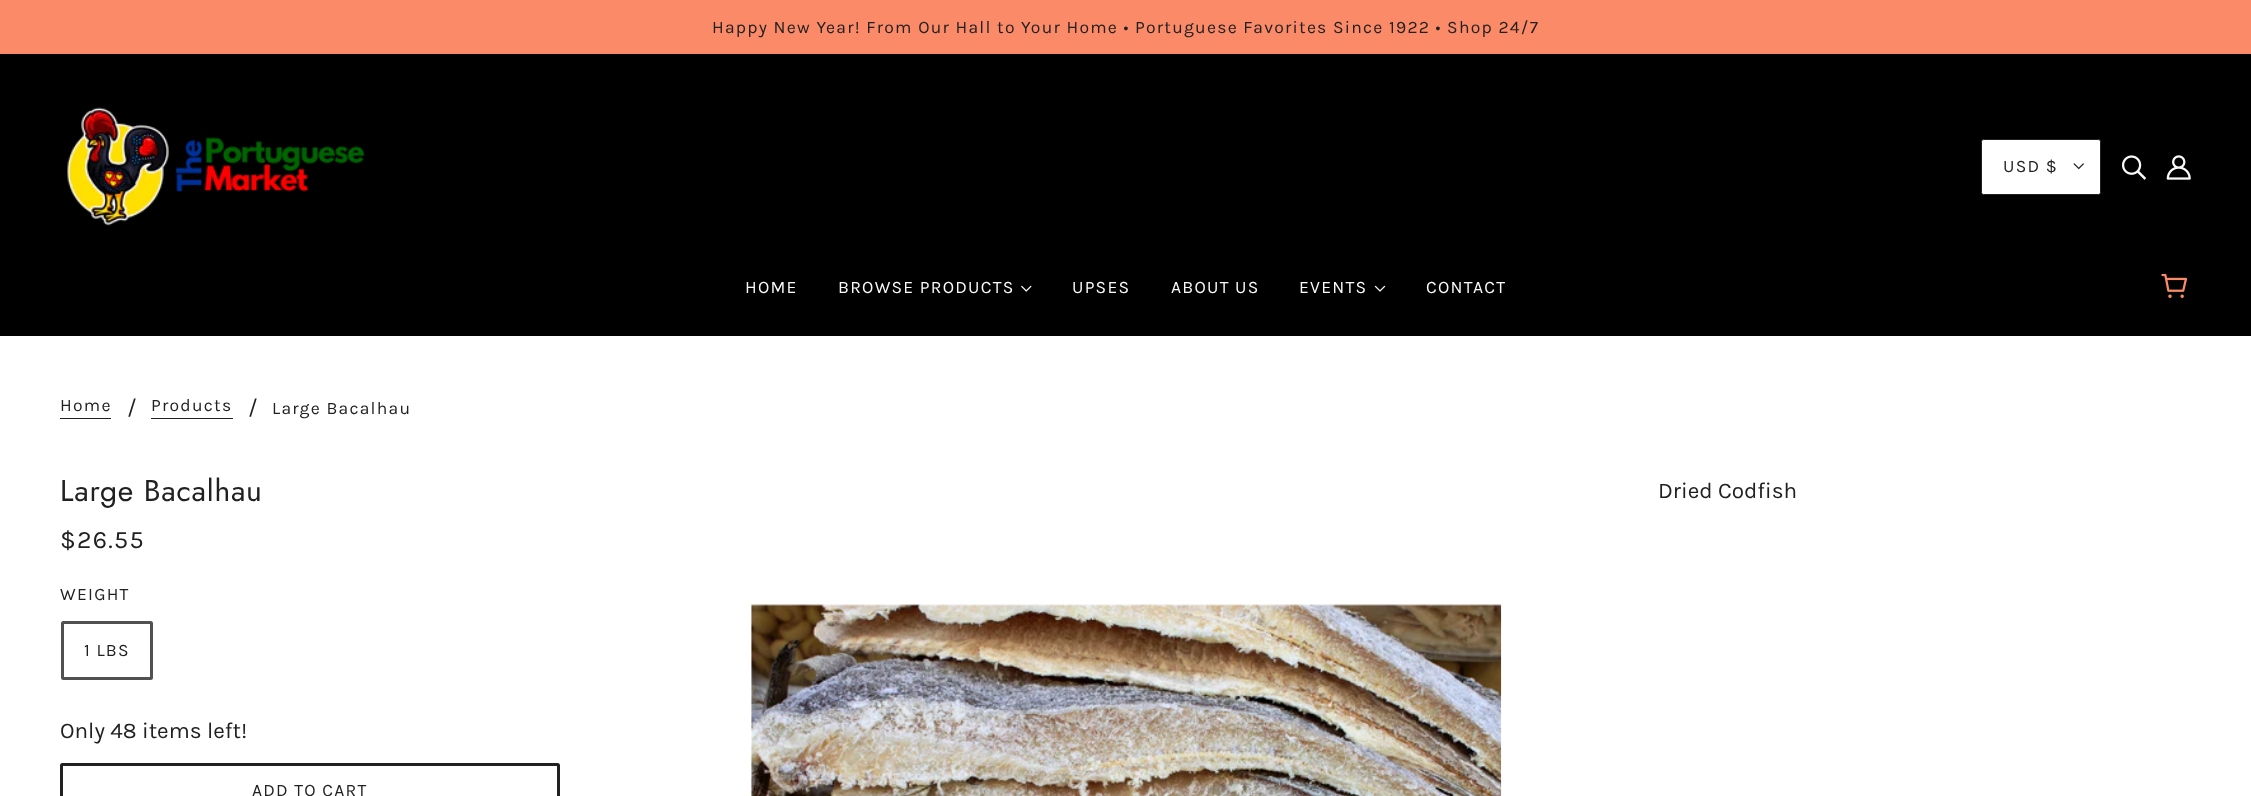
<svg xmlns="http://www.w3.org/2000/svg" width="2251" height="796">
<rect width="100%" height="100%" fill="#fff"/>
<rect width="2251" height="54" fill="#fb8a68"/>
<text x="712" y="33" style="font-family:Karla;font-size:17.5px;letter-spacing:1.25px;fill:#212121">Happy New Year! From Our Hall to Your Home • Portuguese Favorites Since 1922 • Shop 24/7</text>
<rect y="54" width="2251" height="282" fill="#000"/>
<image x="67" y="107" width="298" height="119" href="media/1.png"/>
<rect x="1981.5" y="139.5" width="119" height="55" rx="2" fill="#fff" stroke="#212121"/>
<text x="2003" y="172" style="font-family:Karla;font-size:17.5px;letter-spacing:1.25px;fill:#212121">USD $</text>
<image x="2073" y="163" width="11" height="7" href="media/2.png"/>
<image x="2122" y="155" width="24" height="25" href="media/3.png"/>
<image x="2166" y="155" width="25" height="25" href="media/4.png"/>
<text x="745" y="293" style="font-family:Karla;font-size:17.5px;letter-spacing:1.25px;fill:#fafafa">HOME</text>
<text x="838" y="293" style="font-family:Karla;font-size:17.5px;letter-spacing:1.25px;fill:#fafafa">BROWSE PRODUCTS</text>
<image x="1021" y="285" width="11" height="7" href="media/5.png"/>
<text x="1072" y="293" style="font-family:Karla;font-size:17.5px;letter-spacing:1.25px;fill:#fafafa">UPSES</text>
<text x="1171" y="293" style="font-family:Karla;font-size:17.5px;letter-spacing:1.25px;fill:#fafafa">ABOUT US</text>
<text x="1299" y="293" style="font-family:Karla;font-size:17.5px;letter-spacing:1.25px;fill:#fafafa">EVENTS</text>
<image x="1374" y="285" width="12" height="7" href="media/6.png"/>
<text x="1426" y="293" style="font-family:Karla;font-size:17.5px;letter-spacing:1.25px;fill:#fafafa">CONTACT</text>
<image x="2161" y="274" width="26" height="24" href="media/7.png"/>
<text x="60" y="411" style="font-family:Karla;font-size:17.5px;letter-spacing:1.25px;fill:#212121">Home</text>
<rect x="60" y="418" width="51" height="1" fill="#212121"/>
<text x="127" y="415" style="font-family:Karla;font-size:22.5px;fill:#212121">/</text>
<text x="151" y="411" style="font-family:Karla;font-size:17.5px;letter-spacing:1.25px;fill:#212121">Products</text>
<rect x="151" y="418" width="82" height="1" fill="#212121"/>
<text x="248" y="415" style="font-family:Karla;font-size:22.5px;fill:#212121">/</text>
<text x="272" y="414" style="font-family:Karla;font-size:17.5px;letter-spacing:1.25px;fill:#212121">Large Bacalhau</text>
<text x="60" y="501" style="font-family:Jost;font-size:30px;letter-spacing:0.75px;fill:#212121">Large Bacalhau</text>
<text x="1658" y="498" style="font-family:Karla;font-size:22.5px;fill:#212121">Dried Codfish</text>
<text x="60" y="548" style="font-family:Karla;font-size:25px;letter-spacing:1.25px;fill:#212121">$26.55</text>
<text x="60" y="600" style="font-family:Karla;font-size:17.5px;letter-spacing:1.25px;fill:#212121">WEIGHT</text>
<rect x="62.5" y="622.5" width="89" height="56" rx="1" fill="none" stroke="#515151" stroke-width="3"/>
<text x="84" y="656" style="font-family:Karla;font-size:17.5px;letter-spacing:1.25px;fill:#212121">1 LBS</text>
<text x="60" y="738" style="font-family:Karla;font-size:22.5px;fill:#212121">Only 48 items left!</text>
<rect x="61.5" y="764.5" width="497" height="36" rx="1" fill="none" stroke="#212121" stroke-width="3"/>
<text x="252" y="796" style="font-family:Karla;font-size:17.5px;letter-spacing:1.25px;fill:#212121">ADD TO CART</text>
<image x="751" y="604" width="751" height="192" href="media/8.png"/>
</svg>
